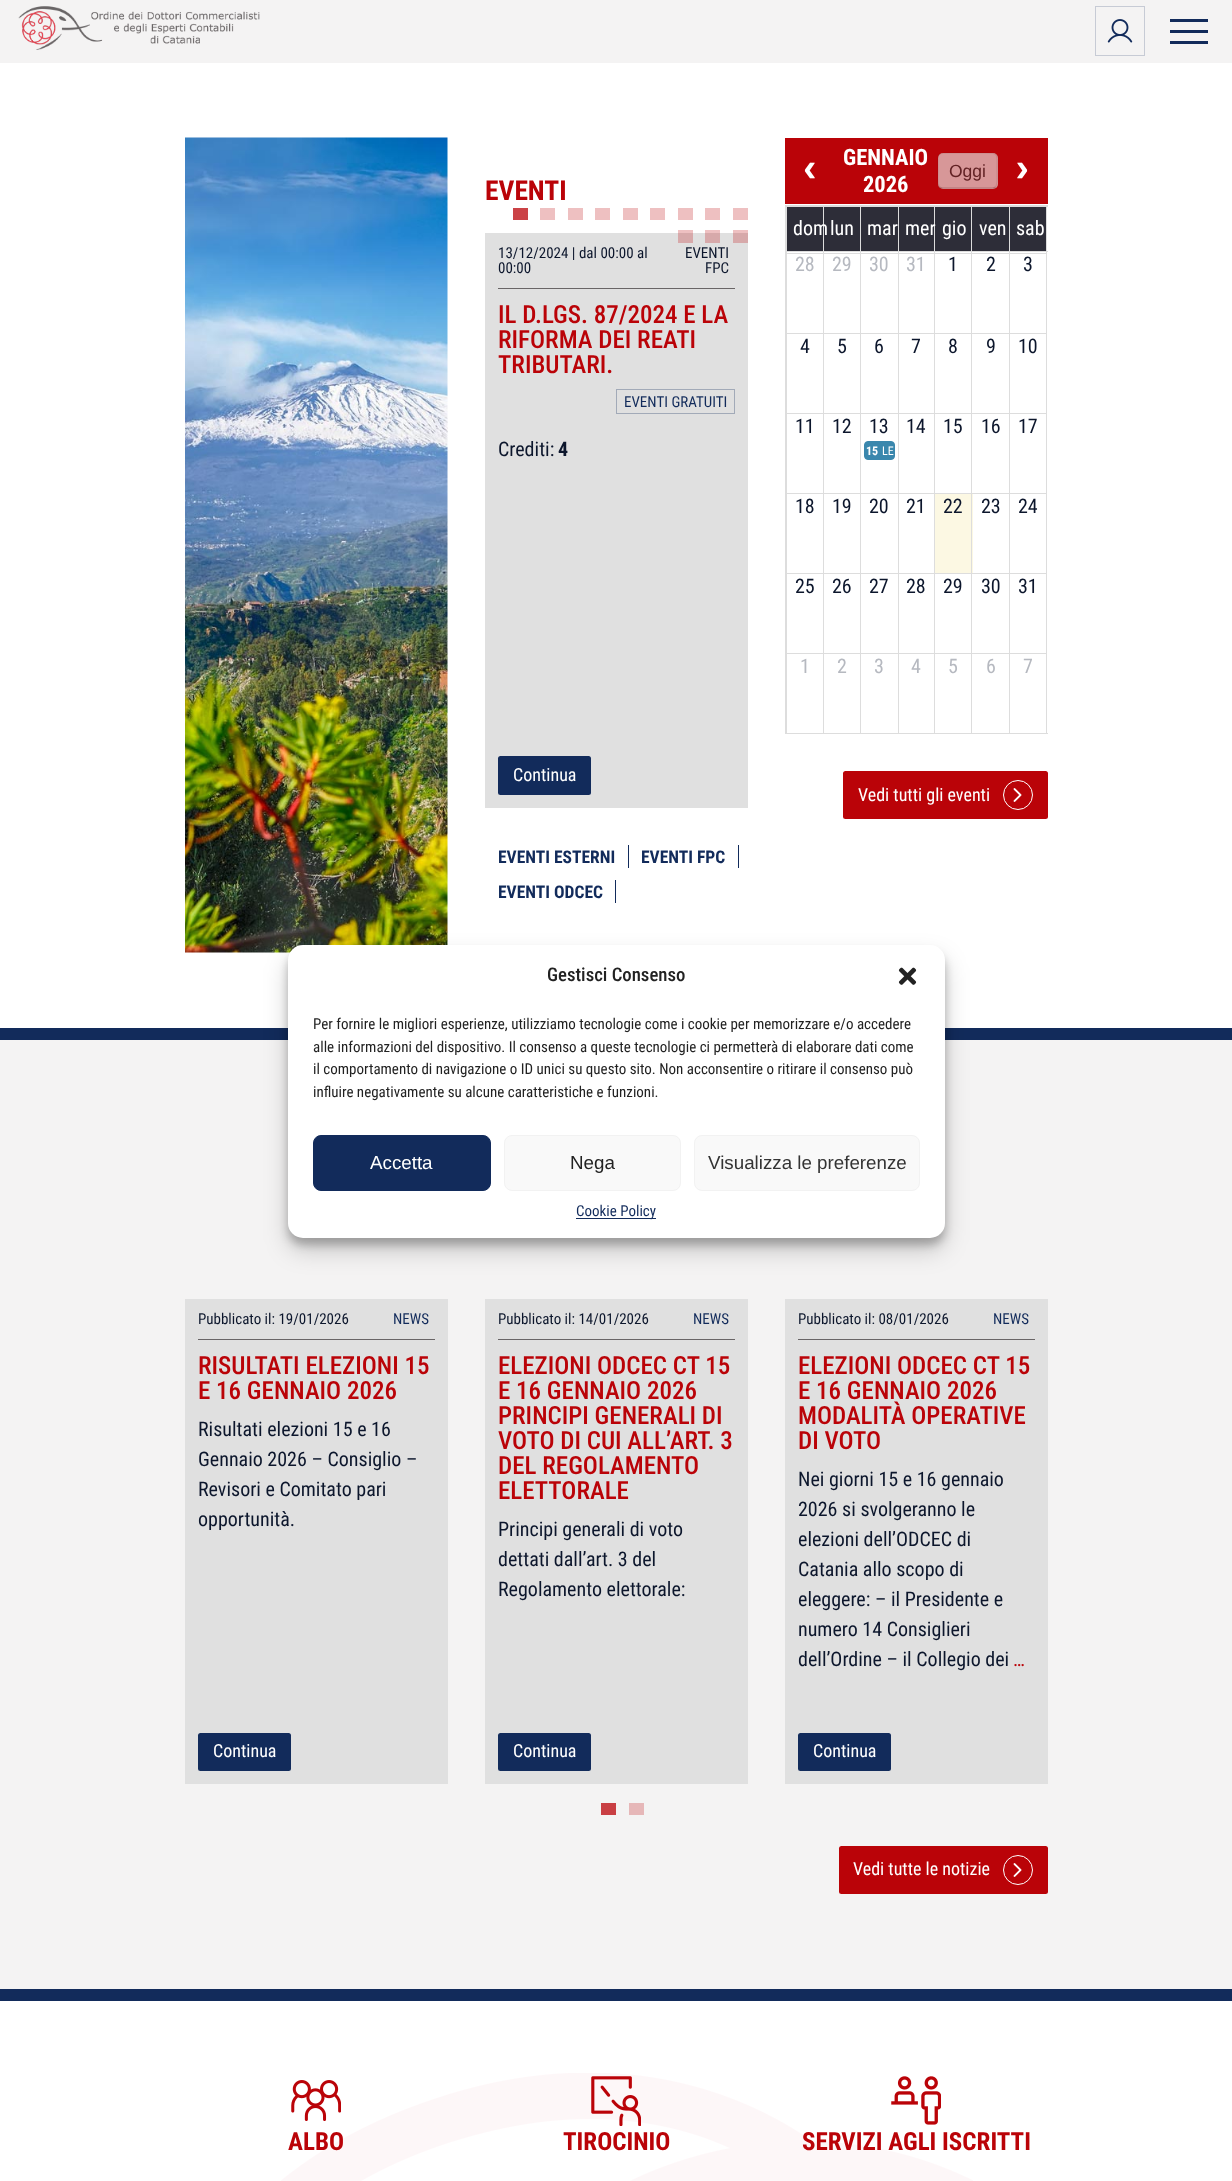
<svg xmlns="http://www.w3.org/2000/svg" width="1232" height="2181">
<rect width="100%" height="100%" fill="#fff"/>
<rect x="733" y="230" width="15" height="3" fill="#eec0c1"/>
<rect x="705" y="230" width="15" height="3" fill="#eec0c1"/>
<rect x="678" y="230" width="15" height="3" fill="#eec0c1"/>
<rect width="1232" height="63" fill="#f4f3f3"/>
<image x="18" y="6" width="242" height="44" href="media/1.png"/>
<rect x="1095.5" y="6.5" width="49" height="49" fill="none" stroke="#c7cbd5"/>
<image x="1107" y="19" width="26" height="24" href="media/2.png"/>
<rect x="1170" y="19" width="38" height="3" fill="#122b5b"/>
<rect x="1170" y="41" width="38" height="3" fill="#122b5b"/>
<rect x="1170" y="30" width="38" height="3" fill="#122b5b"/>
<rect y="1028" width="1232" height="12" fill="#122b5b"/>
<image x="185" y="137" width="263" height="816" href="media/3.png"/>
<text x="485" y="200" style="font-family:Roboto Condensed;font-size:27.5px;font-weight:bold;fill:#ba0308">EVENTI</text>
<rect x="513" y="208" width="15" height="12" fill="#cb4246"/>
<rect x="540" y="208" width="15" height="12" fill="#eec0c1"/>
<rect x="568" y="208" width="15" height="12" fill="#eec0c1"/>
<rect x="595" y="208" width="15" height="12" fill="#eec0c1"/>
<rect x="623" y="208" width="15" height="12" fill="#eec0c1"/>
<rect x="650" y="208" width="15" height="12" fill="#eec0c1"/>
<rect x="678" y="208" width="15" height="12" fill="#eec0c1"/>
<rect x="705" y="208" width="15" height="12" fill="#eec0c1"/>
<rect x="733" y="208" width="15" height="12" fill="#eec0c1"/>
<rect x="485" y="233" width="263" height="575" fill="#e0e0e0"/>
<rect x="733" y="233" width="15" height="10" fill="#d7a9aa"/>
<rect x="705" y="233" width="15" height="10" fill="#d7a9aa"/>
<rect x="678" y="233" width="15" height="10" fill="#d7a9aa"/>
<rect x="498" y="288" width="237" height="1" fill="#696566"/>
<text x="498" y="258" style="font-family:Roboto Condensed;font-size:15px;fill:#0c162c">13/12/2024 | dal 00:00 al</text>
<text x="498" y="273" style="font-family:Roboto Condensed;font-size:15px;fill:#0c162c">00:00</text>
<text x="685" y="258" style="font-family:Roboto Condensed;font-size:15px;fill:#0c162c">EVENTI</text>
<text x="705" y="273" style="font-family:Roboto Condensed;font-size:15px;fill:#0c162c">FPC</text>
<text x="498" y="323" style="font-family:Roboto Condensed;font-size:25px;font-weight:500;fill:#ba0308">IL D.LGS. 87/2024 E LA</text>
<text x="498" y="348" style="font-family:Roboto Condensed;font-size:25px;font-weight:500;fill:#ba0308">RIFORMA DEI REATI</text>
<text x="498" y="373" style="font-family:Roboto Condensed;font-size:25px;font-weight:500;fill:#ba0308">TRIBUTARI.</text>
<rect x="616.5" y="389.5" width="118" height="24" fill="none" stroke="#a2aab8"/>
<text x="624" y="407" style="font-family:Roboto Condensed;font-size:15px;fill:#122b5b">EVENTI GRATUITI</text>
<text x="498" y="456" style="font-family:Roboto Condensed;font-size:20px;fill:#0c162c">Crediti:</text>
<text x="558" y="456" style="font-family:Roboto Condensed;font-size:20px;font-weight:bold;fill:#0c162c">4</text>
<rect x="498" y="756" width="93" height="39" rx="2.5" fill="#122b5b"/>
<text x="513" y="781" style="font-family:Roboto Condensed;font-size:18px;fill:#fff">Continua</text>
<rect x="628" y="845" width="1" height="23" fill="#122b5b"/>
<text x="498" y="863" style="font-family:Roboto Condensed;font-size:17.5px;font-weight:bold;fill:#122b5b">EVENTI ESTERNI</text>
<rect x="738" y="845" width="1" height="23" fill="#122b5b"/>
<text x="641" y="863" style="font-family:Roboto Condensed;font-size:17.5px;font-weight:bold;fill:#122b5b">EVENTI FPC</text>
<rect x="615" y="880" width="1" height="23" fill="#122b5b"/>
<text x="498" y="898" style="font-family:Roboto Condensed;font-size:17.5px;font-weight:bold;fill:#122b5b">EVENTI ODCEC</text>
<rect x="785" y="138" width="263" height="66" fill="#ba0308"/>
<text x="843" y="165" style="font-family:Roboto Condensed;font-size:22.5px;font-weight:bold;fill:#fff">GENNAIO</text>
<text x="863" y="192" style="font-family:Roboto Condensed;font-size:22.5px;font-weight:bold;fill:#fff">2026</text>
<text x="798" y="181" style="font-family:Liberation Mono;font-size:40px;font-weight:bold;fill:#fff">‹</text>
<text x="1010" y="181" style="font-family:Liberation Mono;font-size:40px;font-weight:bold;fill:#fff">›</text>
<rect x="938" y="153" width="60" height="36" rx="5" fill="#d79798"/>
<path d="M995.5 187c-.5 .5-2 1-3 1h-50c-1 0-2.5-.5-3-1" fill="none" stroke="#41010340" stroke-width="1.2"/>
<path d="M939.5 187c-2.5-3-1.5-13-1.5-16.5c0-17-3-17.5 13-17.5h33c16 0 13 .5 13 17.5c0 3.5 1 13.5-1.5 16.5" fill="none" stroke="#4101031a" stroke-width="1.2"/>
<text x="949" y="177" style="font-family:Liberation Sans;font-size:17.5px;fill:#622224">Oggi</text>
<rect x="785" y="205" width="263" height="1" fill="#ddd"/>
<rect x="785" y="251" width="263" height="1" fill="#ddd"/>
<rect x="1046" y="251" width="1" height="483" fill="#ddd"/>
<rect x="1046" y="205" width="1" height="48" fill="#ddd"/>
<rect x="785" y="733" width="263" height="1" fill="#ddd"/>
<rect x="785" y="251" width="1" height="483" fill="#ddd"/>
<rect x="785" y="205" width="1" height="48" fill="#ddd"/>
<rect x="787" y="207" width="36" height="44" fill="#2d2d38"/>
<rect x="1009" y="206" width="39" height="1" fill="#ddd"/>
<rect x="1009" y="206" width="1" height="47" fill="#ddd"/>
<rect x="971" y="206" width="39" height="1" fill="#ddd"/>
<rect x="935" y="207" width="74" height="44" fill="#2d2d38"/>
<rect x="971" y="206" width="1" height="47" fill="#ddd"/>
<rect x="934" y="206" width="39" height="1" fill="#ddd"/>
<rect x="934" y="206" width="1" height="47" fill="#ddd"/>
<rect x="898" y="206" width="37" height="1" fill="#ddd"/>
<rect x="898" y="206" width="1" height="47" fill="#ddd"/>
<rect x="860" y="206" width="39" height="1" fill="#ddd"/>
<rect x="860" y="206" width="1" height="47" fill="#ddd"/>
<rect x="823" y="206" width="38" height="1" fill="#ddd"/>
<rect x="823" y="206" width="1" height="47" fill="#ddd"/>
<rect x="786" y="206" width="38" height="1" fill="#ddd"/>
<rect x="786" y="206" width="1" height="47" fill="#ddd"/>
<rect x="824" y="207" width="36" height="44" fill="#2d2d38"/>
<text x="793" y="235" style="font-family:Roboto Condensed;font-size:20px;fill:#fff">dom</text>
<text x="830" y="235" style="font-family:Roboto Condensed;font-size:20px;fill:#fff">lun</text>
<rect x="861" y="207" width="37" height="44" fill="#2d2d38"/>
<text x="867" y="235" style="font-family:Roboto Condensed;font-size:20px;fill:#fff">mar</text>
<rect x="899" y="207" width="35" height="44" fill="#2d2d38"/>
<text x="905" y="235" style="font-family:Roboto Condensed;font-size:20px;fill:#fff">mer</text>
<text x="942" y="235" style="font-family:Roboto Condensed;font-size:20px;fill:#fff">gio</text>
<text x="979" y="235" style="font-family:Roboto Condensed;font-size:20px;fill:#fff">ven</text>
<rect x="1010" y="207" width="36" height="44" fill="#2d2d38"/>
<text x="1016" y="235" style="font-family:Roboto Condensed;font-size:20px;fill:#fff">sab</text>
<rect x="1009" y="253" width="37" height="1" fill="#ddd"/>
<rect x="1009" y="333" width="37" height="1" fill="#ddd"/>
<rect x="1009" y="253" width="1" height="81" fill="#ddd"/>
<rect x="971" y="253" width="39" height="1" fill="#ddd"/>
<rect x="971" y="333" width="39" height="1" fill="#ddd"/>
<rect x="971" y="253" width="1" height="81" fill="#ddd"/>
<rect x="934" y="253" width="39" height="1" fill="#ddd"/>
<rect x="934" y="333" width="39" height="1" fill="#ddd"/>
<rect x="934" y="253" width="1" height="81" fill="#ddd"/>
<rect x="898" y="253" width="37" height="1" fill="#ddd"/>
<rect x="898" y="333" width="37" height="1" fill="#ddd"/>
<rect x="898" y="253" width="1" height="81" fill="#ddd"/>
<rect x="860" y="253" width="39" height="1" fill="#ddd"/>
<rect x="860" y="333" width="39" height="1" fill="#ddd"/>
<rect x="860" y="253" width="1" height="81" fill="#ddd"/>
<rect x="823" y="253" width="38" height="1" fill="#ddd"/>
<rect x="823" y="333" width="38" height="1" fill="#ddd"/>
<rect x="823" y="253" width="1" height="81" fill="#ddd"/>
<rect x="786" y="253" width="38" height="1" fill="#ddd"/>
<rect x="786" y="333" width="38" height="1" fill="#ddd"/>
<rect x="786" y="253" width="1" height="81" fill="#ddd"/>
<text x="795" y="271" style="font-family:Roboto Condensed;font-size:20px;fill:#b6b9c0">28</text>
<text x="832" y="271" style="font-family:Roboto Condensed;font-size:20px;fill:#b6b9c0">29</text>
<text x="869" y="271" style="font-family:Roboto Condensed;font-size:20px;fill:#b6b9c0">30</text>
<text x="906" y="271" style="font-family:Roboto Condensed;font-size:20px;fill:#b6b9c0">31</text>
<text x="948" y="271" style="font-family:Roboto Condensed;font-size:20px;fill:#0c162c">1</text>
<text x="986" y="271" style="font-family:Roboto Condensed;font-size:20px;fill:#0c162c">2</text>
<text x="1023" y="271" style="font-family:Roboto Condensed;font-size:20px;fill:#0c162c">3</text>
<rect x="1009" y="413" width="37" height="1" fill="#ddd"/>
<rect x="1009" y="333" width="1" height="81" fill="#ddd"/>
<rect x="971" y="413" width="39" height="1" fill="#ddd"/>
<rect x="971" y="333" width="1" height="81" fill="#ddd"/>
<rect x="934" y="413" width="39" height="1" fill="#ddd"/>
<rect x="934" y="333" width="1" height="81" fill="#ddd"/>
<rect x="898" y="413" width="37" height="1" fill="#ddd"/>
<rect x="898" y="333" width="1" height="81" fill="#ddd"/>
<rect x="860" y="413" width="39" height="1" fill="#ddd"/>
<rect x="860" y="333" width="1" height="81" fill="#ddd"/>
<rect x="823" y="413" width="38" height="1" fill="#ddd"/>
<rect x="823" y="333" width="1" height="81" fill="#ddd"/>
<rect x="786" y="413" width="38" height="1" fill="#ddd"/>
<rect x="786" y="333" width="1" height="81" fill="#ddd"/>
<text x="800" y="353" style="font-family:Roboto Condensed;font-size:20px;fill:#0c162c">4</text>
<text x="837" y="353" style="font-family:Roboto Condensed;font-size:20px;fill:#0c162c">5</text>
<text x="874" y="353" style="font-family:Roboto Condensed;font-size:20px;fill:#0c162c">6</text>
<text x="911" y="353" style="font-family:Roboto Condensed;font-size:20px;fill:#0c162c">7</text>
<text x="948" y="353" style="font-family:Roboto Condensed;font-size:20px;fill:#0c162c">8</text>
<text x="986" y="353" style="font-family:Roboto Condensed;font-size:20px;fill:#0c162c">9</text>
<text x="1018" y="353" style="font-family:Roboto Condensed;font-size:20px;fill:#0c162c">10</text>
<rect x="1009" y="493" width="37" height="1" fill="#ddd"/>
<rect x="1009" y="413" width="1" height="81" fill="#ddd"/>
<rect x="971" y="493" width="39" height="1" fill="#ddd"/>
<rect x="971" y="413" width="1" height="81" fill="#ddd"/>
<rect x="934" y="493" width="39" height="1" fill="#ddd"/>
<rect x="934" y="413" width="1" height="81" fill="#ddd"/>
<rect x="898" y="493" width="37" height="1" fill="#ddd"/>
<rect x="898" y="413" width="1" height="81" fill="#ddd"/>
<rect x="860" y="493" width="39" height="1" fill="#ddd"/>
<rect x="860" y="413" width="1" height="81" fill="#ddd"/>
<rect x="823" y="493" width="38" height="1" fill="#ddd"/>
<rect x="823" y="413" width="1" height="81" fill="#ddd"/>
<rect x="786" y="493" width="38" height="1" fill="#ddd"/>
<rect x="786" y="413" width="1" height="81" fill="#ddd"/>
<text x="795" y="433" style="font-family:Roboto Condensed;font-size:20px;fill:#0c162c">11</text>
<text x="832" y="433" style="font-family:Roboto Condensed;font-size:20px;fill:#0c162c">12</text>
<text x="869" y="433" style="font-family:Roboto Condensed;font-size:20px;fill:#0c162c">13</text>
<text x="906" y="433" style="font-family:Roboto Condensed;font-size:20px;fill:#0c162c">14</text>
<text x="943" y="433" style="font-family:Roboto Condensed;font-size:20px;fill:#0c162c">15</text>
<text x="981" y="433" style="font-family:Roboto Condensed;font-size:20px;fill:#0c162c">16</text>
<text x="1018" y="433" style="font-family:Roboto Condensed;font-size:20px;fill:#0c162c">17</text>
<rect x="864.5" y="441.5" width="30" height="18" rx="3.5" fill="#3a87ad" stroke="#3a87ad"/>
<text x="866" y="455" style="font-family:Roboto Condensed;font-size:12px;font-weight:bold;fill:#fff">15</text>
<text x="882" y="455" style="font-family:Roboto Condensed;font-size:12px;fill:#fff">LE</text>
<rect x="1009" y="573" width="37" height="1" fill="#ddd"/>
<rect x="1009" y="493" width="1" height="81" fill="#ddd"/>
<rect x="971" y="573" width="39" height="1" fill="#ddd"/>
<rect x="935" y="494" width="38" height="79" fill="#fcf8e3"/>
<rect x="971" y="493" width="1" height="81" fill="#ddd"/>
<rect x="934" y="573" width="39" height="1" fill="#ddd"/>
<rect x="934" y="493" width="1" height="81" fill="#ddd"/>
<rect x="898" y="573" width="37" height="1" fill="#ddd"/>
<rect x="898" y="493" width="1" height="81" fill="#ddd"/>
<rect x="860" y="573" width="39" height="1" fill="#ddd"/>
<rect x="860" y="493" width="1" height="81" fill="#ddd"/>
<rect x="823" y="573" width="38" height="1" fill="#ddd"/>
<rect x="823" y="493" width="1" height="81" fill="#ddd"/>
<rect x="786" y="573" width="38" height="1" fill="#ddd"/>
<rect x="786" y="493" width="1" height="81" fill="#ddd"/>
<text x="795" y="513" style="font-family:Roboto Condensed;font-size:20px;fill:#0c162c">18</text>
<text x="832" y="513" style="font-family:Roboto Condensed;font-size:20px;fill:#0c162c">19</text>
<text x="869" y="513" style="font-family:Roboto Condensed;font-size:20px;fill:#0c162c">20</text>
<text x="906" y="513" style="font-family:Roboto Condensed;font-size:20px;fill:#0c162c">21</text>
<text x="943" y="513" style="font-family:Roboto Condensed;font-size:20px;fill:#0c162c">22</text>
<text x="981" y="513" style="font-family:Roboto Condensed;font-size:20px;fill:#0c162c">23</text>
<text x="1018" y="513" style="font-family:Roboto Condensed;font-size:20px;fill:#0c162c">24</text>
<rect x="1009" y="653" width="37" height="1" fill="#ddd"/>
<rect x="1009" y="573" width="1" height="81" fill="#ddd"/>
<rect x="971" y="653" width="39" height="1" fill="#ddd"/>
<rect x="971" y="573" width="1" height="81" fill="#ddd"/>
<rect x="934" y="653" width="39" height="1" fill="#ddd"/>
<rect x="934" y="573" width="1" height="81" fill="#ddd"/>
<rect x="898" y="653" width="37" height="1" fill="#ddd"/>
<rect x="898" y="573" width="1" height="81" fill="#ddd"/>
<rect x="860" y="653" width="39" height="1" fill="#ddd"/>
<rect x="860" y="573" width="1" height="81" fill="#ddd"/>
<rect x="823" y="653" width="38" height="1" fill="#ddd"/>
<rect x="823" y="573" width="1" height="81" fill="#ddd"/>
<rect x="786" y="653" width="38" height="1" fill="#ddd"/>
<rect x="786" y="573" width="1" height="160" fill="#ddd"/>
<text x="795" y="593" style="font-family:Roboto Condensed;font-size:20px;fill:#0c162c">25</text>
<text x="832" y="593" style="font-family:Roboto Condensed;font-size:20px;fill:#0c162c">26</text>
<text x="869" y="593" style="font-family:Roboto Condensed;font-size:20px;fill:#0c162c">27</text>
<text x="906" y="593" style="font-family:Roboto Condensed;font-size:20px;fill:#0c162c">28</text>
<text x="943" y="593" style="font-family:Roboto Condensed;font-size:20px;fill:#0c162c">29</text>
<text x="981" y="593" style="font-family:Roboto Condensed;font-size:20px;fill:#0c162c">30</text>
<text x="1018" y="593" style="font-family:Roboto Condensed;font-size:20px;fill:#0c162c">31</text>
<rect x="823" y="653" width="1" height="80" fill="#ddd"/>
<rect x="860" y="653" width="1" height="80" fill="#ddd"/>
<rect x="898" y="653" width="1" height="80" fill="#ddd"/>
<rect x="934" y="653" width="1" height="80" fill="#ddd"/>
<rect x="971" y="653" width="1" height="80" fill="#ddd"/>
<rect x="1009" y="653" width="1" height="80" fill="#ddd"/>
<text x="800" y="673" style="font-family:Roboto Condensed;font-size:20px;fill:#b6b9c0">1</text>
<text x="837" y="673" style="font-family:Roboto Condensed;font-size:20px;fill:#b6b9c0">2</text>
<text x="874" y="673" style="font-family:Roboto Condensed;font-size:20px;fill:#b6b9c0">3</text>
<text x="911" y="673" style="font-family:Roboto Condensed;font-size:20px;fill:#b6b9c0">4</text>
<text x="948" y="673" style="font-family:Roboto Condensed;font-size:20px;fill:#b6b9c0">5</text>
<text x="986" y="673" style="font-family:Roboto Condensed;font-size:20px;fill:#b6b9c0">6</text>
<text x="1023" y="673" style="font-family:Roboto Condensed;font-size:20px;fill:#b6b9c0">7</text>
<rect x="843" y="771" width="205" height="48" rx="2.5" fill="#ba0308"/>
<text x="858" y="801" style="font-family:Roboto Condensed;font-size:18px;fill:#fff">Vedi tutti gli eventi</text>
<circle cx="1018" cy="795" r="14.5" fill="none" stroke="#fff"/>
<image x="1013" y="788" width="9" height="14" href="media/4.png"/>
<rect y="1040" width="1232" height="949" fill="#f4f3f3"/>
<rect y="1989" width="1232" height="12" fill="#122b5b"/>
<rect x="185" y="1299" width="263" height="485" fill="#e0e0e0"/>
<rect x="198" y="1339" width="237" height="1" fill="#696566"/>
<text x="198" y="1324" style="font-family:Roboto Condensed;font-size:15px;fill:#0c162c">Pubblicato il: 19/01/2026</text>
<text x="393" y="1324" style="font-family:Roboto Condensed;font-size:15px;fill:#122b5b">NEWS</text>
<text x="198" y="1374" style="font-family:Roboto Condensed;font-size:25px;font-weight:500;fill:#ba0308">RISULTATI ELEZIONI 15</text>
<text x="198" y="1399" style="font-family:Roboto Condensed;font-size:25px;font-weight:500;fill:#ba0308">E 16 GENNAIO 2026</text>
<text x="198" y="1436" style="font-family:Roboto Condensed;font-size:20px;fill:#0c162c">Risultati elezioni 15 e 16</text>
<text x="198" y="1466" style="font-family:Roboto Condensed;font-size:20px;fill:#0c162c">Gennaio 2026 – Consiglio –</text>
<text x="198" y="1496" style="font-family:Roboto Condensed;font-size:20px;fill:#0c162c">Revisori e Comitato pari</text>
<text x="198" y="1526" style="font-family:Roboto Condensed;font-size:20px;fill:#0c162c">opportunità.</text>
<rect x="198" y="1733" width="93" height="38" rx="2.5" fill="#122b5b"/>
<text x="213" y="1757" style="font-family:Roboto Condensed;font-size:18px;fill:#fff">Continua</text>
<rect x="485" y="1299" width="263" height="485" fill="#e0e0e0"/>
<rect x="498" y="1339" width="237" height="1" fill="#696566"/>
<text x="498" y="1324" style="font-family:Roboto Condensed;font-size:15px;fill:#0c162c">Pubblicato il: 14/01/2026</text>
<text x="693" y="1324" style="font-family:Roboto Condensed;font-size:15px;fill:#122b5b">NEWS</text>
<text x="498" y="1374" style="font-family:Roboto Condensed;font-size:25px;font-weight:500;fill:#ba0308">ELEZIONI ODCEC CT 15</text>
<text x="498" y="1399" style="font-family:Roboto Condensed;font-size:25px;font-weight:500;fill:#ba0308">E 16 GENNAIO 2026</text>
<text x="498" y="1424" style="font-family:Roboto Condensed;font-size:25px;font-weight:500;fill:#ba0308">PRINCIPI GENERALI DI</text>
<text x="498" y="1449" style="font-family:Roboto Condensed;font-size:25px;font-weight:500;fill:#ba0308">VOTO DI CUI ALL’ART. 3</text>
<text x="498" y="1474" style="font-family:Roboto Condensed;font-size:25px;font-weight:500;fill:#ba0308">DEL REGOLAMENTO</text>
<text x="498" y="1499" style="font-family:Roboto Condensed;font-size:25px;font-weight:500;fill:#ba0308">ELETTORALE</text>
<text x="498" y="1536" style="font-family:Roboto Condensed;font-size:20px;fill:#0c162c">Principi generali di voto</text>
<text x="498" y="1566" style="font-family:Roboto Condensed;font-size:20px;fill:#0c162c">dettati dall’art. 3 del</text>
<text x="498" y="1596" style="font-family:Roboto Condensed;font-size:20px;fill:#0c162c">Regolamento elettorale:</text>
<rect x="498" y="1733" width="93" height="38" rx="2.5" fill="#122b5b"/>
<text x="513" y="1757" style="font-family:Roboto Condensed;font-size:18px;fill:#fff">Continua</text>
<rect x="785" y="1299" width="263" height="485" fill="#e0e0e0"/>
<rect x="798" y="1339" width="237" height="1" fill="#696566"/>
<text x="798" y="1324" style="font-family:Roboto Condensed;font-size:15px;fill:#0c162c">Pubblicato il: 08/01/2026</text>
<text x="993" y="1324" style="font-family:Roboto Condensed;font-size:15px;fill:#122b5b">NEWS</text>
<text x="798" y="1374" style="font-family:Roboto Condensed;font-size:25px;font-weight:500;fill:#ba0308">ELEZIONI ODCEC CT 15</text>
<text x="798" y="1399" style="font-family:Roboto Condensed;font-size:25px;font-weight:500;fill:#ba0308">E 16 GENNAIO 2026</text>
<text x="798" y="1424" style="font-family:Roboto Condensed;font-size:25px;font-weight:500;fill:#ba0308">MODALITÀ OPERATIVE</text>
<text x="798" y="1449" style="font-family:Roboto Condensed;font-size:25px;font-weight:500;fill:#ba0308">DI VOTO</text>
<text x="798" y="1486" style="font-family:Roboto Condensed;font-size:20px;fill:#0c162c">Nei giorni 15 e 16 gennaio</text>
<text x="798" y="1516" style="font-family:Roboto Condensed;font-size:20px;fill:#0c162c">2026 si svolgeranno le</text>
<text x="798" y="1546" style="font-family:Roboto Condensed;font-size:20px;fill:#0c162c">elezioni dell’ODCEC di</text>
<text x="798" y="1576" style="font-family:Roboto Condensed;font-size:20px;fill:#0c162c">Catania allo scopo di</text>
<text x="798" y="1606" style="font-family:Roboto Condensed;font-size:20px;fill:#0c162c">eleggere: – il Presidente e</text>
<text x="798" y="1636" style="font-family:Roboto Condensed;font-size:20px;fill:#0c162c">numero 14 Consiglieri</text>
<text x="798" y="1666" style="font-family:Roboto Condensed;font-size:20px;fill:#0c162c">dell’Ordine – il Collegio dei</text>
<text x="1013" y="1666" style="font-family:Roboto Condensed;font-size:20px;fill:#ba0308">…</text>
<rect x="798" y="1733" width="93" height="38" rx="2.5" fill="#122b5b"/>
<text x="813" y="1757" style="font-family:Roboto Condensed;font-size:18px;fill:#fff">Continua</text>
<rect x="601" y="1803" width="15" height="12" fill="#c93f43"/>
<rect x="629" y="1803" width="15" height="12" fill="#e6b7b8"/>
<rect x="839" y="1846" width="209" height="48" rx="2.5" fill="#ba0308"/>
<text x="853" y="1875" style="font-family:Roboto Condensed;font-size:18px;fill:#fff">Vedi tutte le notizie</text>
<circle cx="1018" cy="1870" r="14.5" fill="none" stroke="#fff"/>
<image x="1013" y="1863" width="9" height="14" href="media/4.png"/>
<image x="281" y="2073" width="692" height="108" href="media/5.png"/>
<image x="291" y="2080" width="50" height="41" href="media/6.png"/>
<text x="288" y="2150" style="font-family:Roboto Condensed;font-size:25px;font-weight:bold;fill:#ba0308">ALBO</text>
<image x="591" y="2076" width="50" height="50" href="media/7.png"/>
<text x="563" y="2150" style="font-family:Roboto Condensed;font-size:25px;font-weight:bold;fill:#ba0308">TIROCINIO</text>
<image x="891" y="2076" width="50" height="49" href="media/8.png"/>
<text x="802" y="2150" style="font-family:Roboto Condensed;font-size:25px;font-weight:bold;fill:#ba0308">SERVIZI AGLI ISCRITTI</text>
<rect x="288" y="953" width="657" height="292" rx="15" fill="#0000003b" filter="blur(4px)"/>
<rect x="288" y="958" width="657" height="292" rx="15" fill="#00000030" filter="blur(12.5px)"/>
<rect x="288" y="945" width="657" height="293" rx="15" fill="#fff"/>
<text x="547" y="981" style="font-family:Roboto Condensed;font-size:18.75px;font-weight:500;fill:#222">Gestisci Consenso</text>
<image x="898" y="967" width="19" height="18" href="media/9.png"/>
<text x="313" y="1029" style="font-family:Roboto Condensed;font-size:15px;fill:#222">Per fornire le migliori esperienze, utilizziamo tecnologie come i cookie per memorizzare e/o accedere</text>
<text x="313" y="1052" style="font-family:Roboto Condensed;font-size:15px;fill:#222">alle informazioni del dispositivo. Il consenso a queste tecnologie ci permetterà di elaborare dati come</text>
<text x="313" y="1074" style="font-family:Roboto Condensed;font-size:15px;fill:#222">il comportamento di navigazione o ID unici su questo sito. Non acconsentire o ritirare il consenso può</text>
<text x="313" y="1097" style="font-family:Roboto Condensed;font-size:15px;fill:#222">influire negativamente su alcune caratteristiche e funzioni.</text>
<rect x="313.5" y="1135.5" width="177" height="55" rx="7.5" fill="#122b5b" stroke="#122b5b"/>
<text x="370" y="1169" style="font-family:Liberation Sans;font-size:18.75px;fill:#fff">Accetta</text>
<rect x="504.5" y="1135.5" width="176" height="55" rx="7.5" fill="#f9f9f9" stroke="#f2f2f2"/>
<text x="570" y="1169" style="font-family:Liberation Sans;font-size:18.75px;fill:#222">Nega</text>
<rect x="694.5" y="1135.5" width="225" height="55" rx="7.5" fill="#f9f9f9" stroke="#f2f2f2"/>
<text x="708" y="1169" style="font-family:Liberation Sans;font-size:18.75px;fill:#333">Visualizza le preferenze</text>
<rect x="576" y="1218" width="80" height="1" fill="#122b5b"/>
<text x="576" y="1216" style="font-family:Roboto Condensed;font-size:15px;fill:#122b5b">Cookie Policy</text>
</svg>
